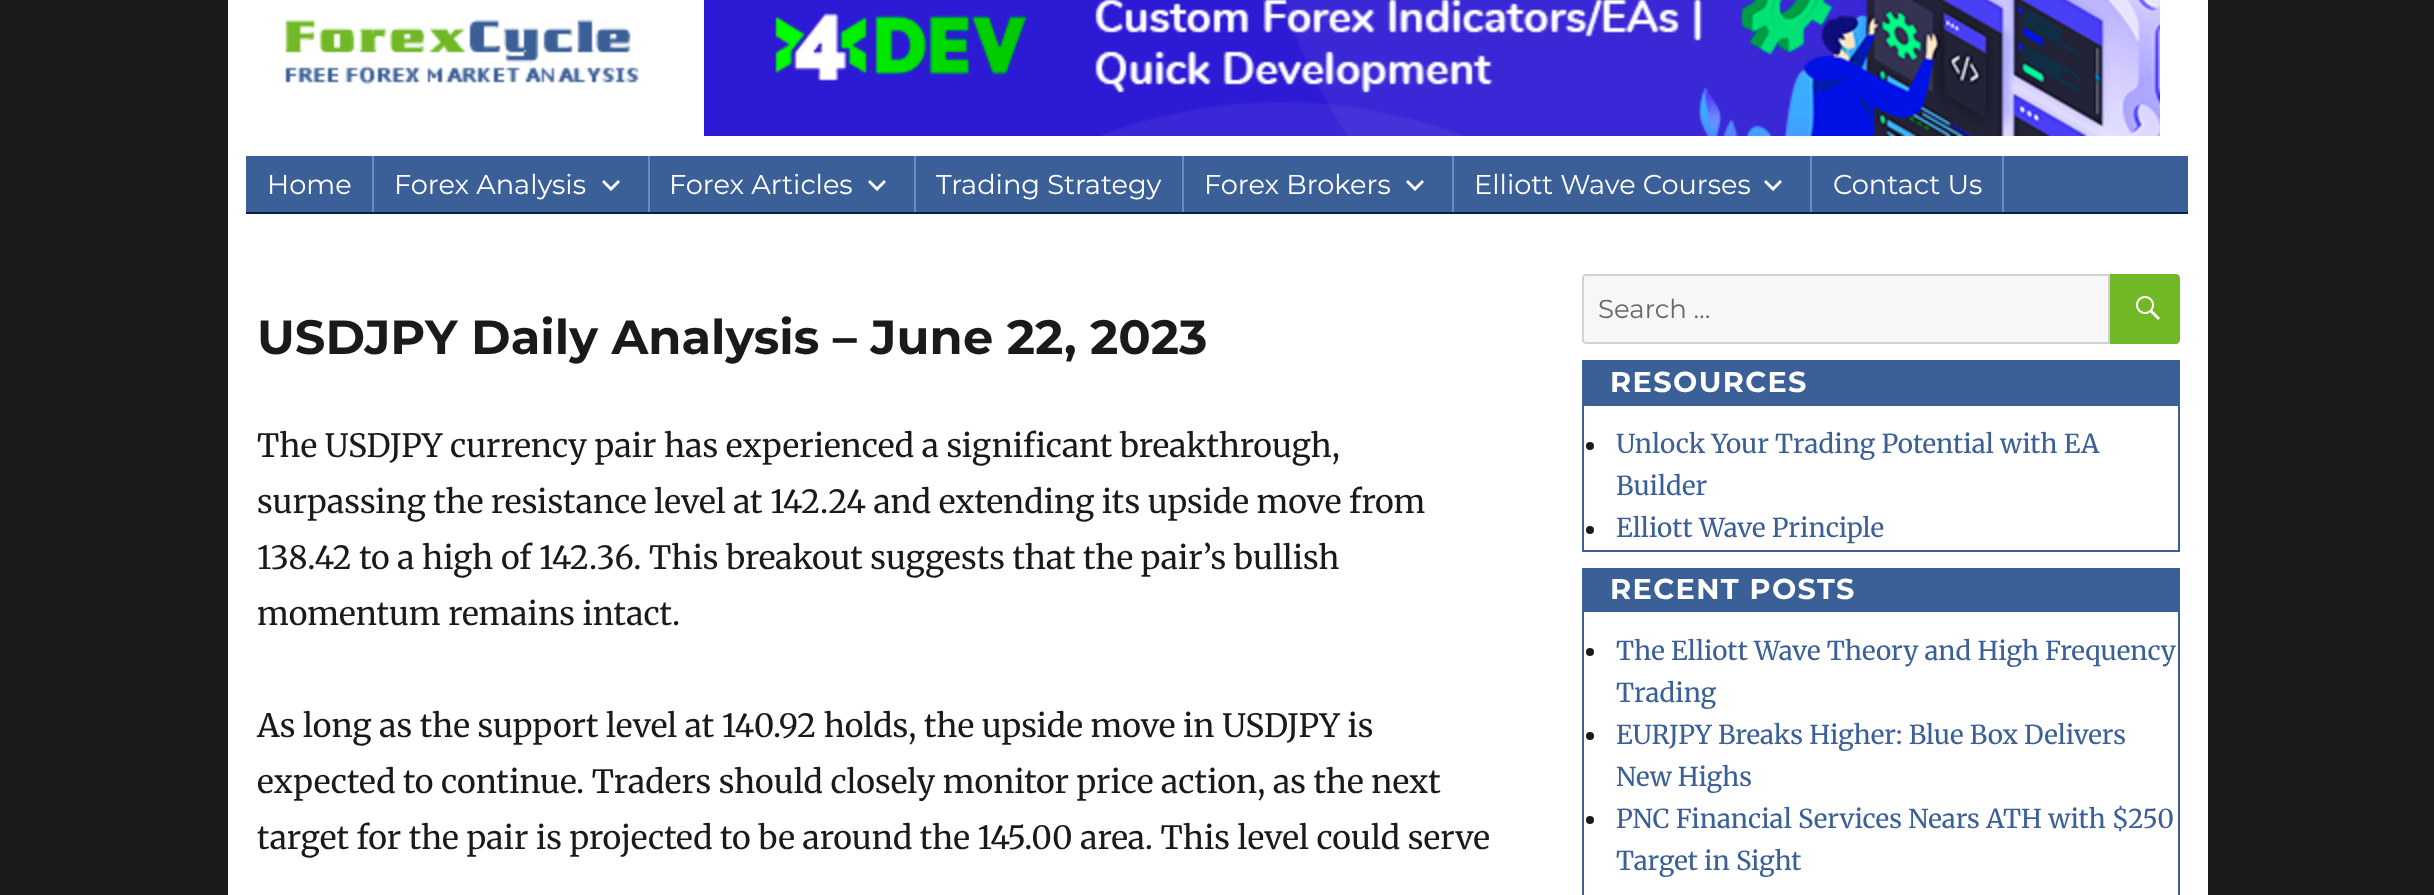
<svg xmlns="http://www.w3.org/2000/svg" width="2434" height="895">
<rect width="100%" height="100%" fill="#1a1a1a"/>
<rect x="228" width="1980" height="895" fill="#fff"/>
<image x="285" y="19" width="354" height="66" href="media/1.png"/>
<image x="704" y="0" width="1456" height="136" href="media/2.png"/>
<rect x="246" y="156" width="1942" height="56" fill="#3b6097"/>
<rect x="246" y="212" width="1942" height="2" fill="#072144"/>
<rect x="372" y="156" width="2" height="56" fill="#628dc9"/>
<text x="267" y="194" style="font-family:Montserrat;font-size:27.25px;fill:#fff">Home</text>
<rect x="648" y="156" width="2" height="56" fill="#628dc9"/>
<text x="394" y="194" style="font-family:Montserrat;font-size:27.25px;fill:#fff">Forex Analysis</text>
<path d="M618 180l2 2l-9 9l-9-9l2-2l7 7z" fill="#fff"/>
<rect x="914" y="156" width="2" height="56" fill="#628dc9"/>
<text x="669" y="194" style="font-family:Montserrat;font-size:27.25px;fill:#fff">Forex Articles</text>
<path d="M884 180l2 2l-9 9l-9-9l2-2l7 7z" fill="#fff"/>
<rect x="1182" y="156" width="2" height="56" fill="#628dc9"/>
<text x="936" y="194" style="font-family:Montserrat;font-size:27.25px;fill:#fff">Trading Strategy</text>
<rect x="1452" y="156" width="2" height="56" fill="#628dc9"/>
<text x="1204" y="194" style="font-family:Montserrat;font-size:27.25px;fill:#fff">Forex Brokers</text>
<path d="M1422 180l2 2l-9 9l-9-9l2-2l7 7z" fill="#fff"/>
<rect x="1810" y="156" width="2" height="56" fill="#628dc9"/>
<text x="1474" y="194" style="font-family:Montserrat;font-size:27.25px;fill:#fff">Elliott Wave Courses</text>
<path d="M1780 180l2 2l-9 9l-9-9l2-2l7 7z" fill="#fff"/>
<rect x="2002" y="156" width="2" height="56" fill="#628dc9"/>
<text x="1833" y="194" style="font-family:Montserrat;font-size:27.25px;fill:#fff">Contact Us</text>
<text x="257" y="354" style="font-family:Montserrat;font-size:48px;font-weight:bold;fill:#1a1a1a">USDJPY Daily Analysis – June 22, 2023</text>
<text x="257" y="457" style="font-family:Merriweather;font-size:32px;fill:#1a1a1a">The USDJPY currency pair has experienced a significant breakthrough,</text>
<text x="257" y="513" style="font-family:Merriweather;font-size:32px;fill:#1a1a1a">surpassing the resistance level at 142.24 and extending its upside move from</text>
<text x="257" y="569" style="font-family:Merriweather;font-size:32px;fill:#1a1a1a">138.42 to a high of 142.36. This breakout suggests that the pair’s bullish</text>
<text x="257" y="625" style="font-family:Merriweather;font-size:32px;fill:#1a1a1a">momentum remains intact.</text>
<text x="257" y="737" style="font-family:Merriweather;font-size:32px;fill:#1a1a1a">As long as the support level at 140.92 holds, the upside move in USDJPY is</text>
<text x="257" y="793" style="font-family:Merriweather;font-size:32px;fill:#1a1a1a">expected to continue. Traders should closely monitor price action, as the next</text>
<text x="257" y="849" style="font-family:Merriweather;font-size:32px;fill:#1a1a1a">target for the pair is projected to be around the 145.00 area. This level could serve</text>
<path d="M1586 275h523v68h-523c-1.5 0-3-1.5-3-3v-62c0-1.5 1.5-3 3-3z" fill="#f7f7f7" stroke="#d1d1d1" stroke-width="2"/>
<text x="1598" y="318" style="font-family:Montserrat;font-size:26px;fill:#686868">Search …</text>
<path d="M2110 274h66c2 0 4 2 4 4v62c0 2-2 4-4 4h-66z" fill="#70b825"/>
<image x="2136" y="296" width="24" height="24" href="media/3.png"/>
<rect x="1583" y="361" width="596" height="190" fill="none" stroke="#3b6097" stroke-width="2"/>
<rect x="1584" y="362" width="594" height="44" fill="#3b6097"/>
<text x="1610" y="392" style="font-family:Montserrat;font-size:28.75px;font-weight:bold;letter-spacing:1.4px;fill:#fff">RESOURCES</text>
<circle cx="1590" cy="446" r="4" fill="#1a1a1a"/>
<text x="1616" y="453" style="font-family:Merriweather;font-size:26px;fill:#3b6097">Unlock Your Trading Potential with EA</text>
<text x="1616" y="495" style="font-family:Merriweather;font-size:26px;fill:#3b6097">Builder</text>
<circle cx="1590" cy="530" r="4" fill="#1a1a1a"/>
<text x="1616" y="537" style="font-family:Merriweather;font-size:26px;fill:#3b6097">Elliott Wave Principle</text>
<rect x="1583" y="569" width="596" height="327" fill="none" stroke="#3b6097" stroke-width="2"/>
<rect x="1584" y="570" width="594" height="42" fill="#3b6097"/>
<text x="1610" y="599" style="font-family:Montserrat;font-size:28.75px;font-weight:bold;letter-spacing:1.4px;fill:#fff">RECENT POSTS</text>
<circle cx="1590" cy="652" r="4" fill="#1a1a1a"/>
<text x="1616" y="660" style="font-family:Merriweather;font-size:26px;fill:#3b6097">The Elliott Wave Theory and High Frequency</text>
<text x="1616" y="702" style="font-family:Merriweather;font-size:26px;fill:#3b6097">Trading</text>
<circle cx="1590" cy="736" r="4" fill="#1a1a1a"/>
<text x="1616" y="744" style="font-family:Merriweather;font-size:26px;fill:#3b6097">EURJPY Breaks Higher: Blue Box Delivers</text>
<text x="1616" y="786" style="font-family:Merriweather;font-size:26px;fill:#3b6097">New Highs</text>
<circle cx="1590" cy="820" r="4" fill="#1a1a1a"/>
<text x="1616" y="828" style="font-family:Merriweather;font-size:26px;fill:#3b6097">PNC Financial Services Nears ATH with $250</text>
<text x="1616" y="870" style="font-family:Merriweather;font-size:26px;fill:#3b6097">Target in Sight</text>
</svg>
